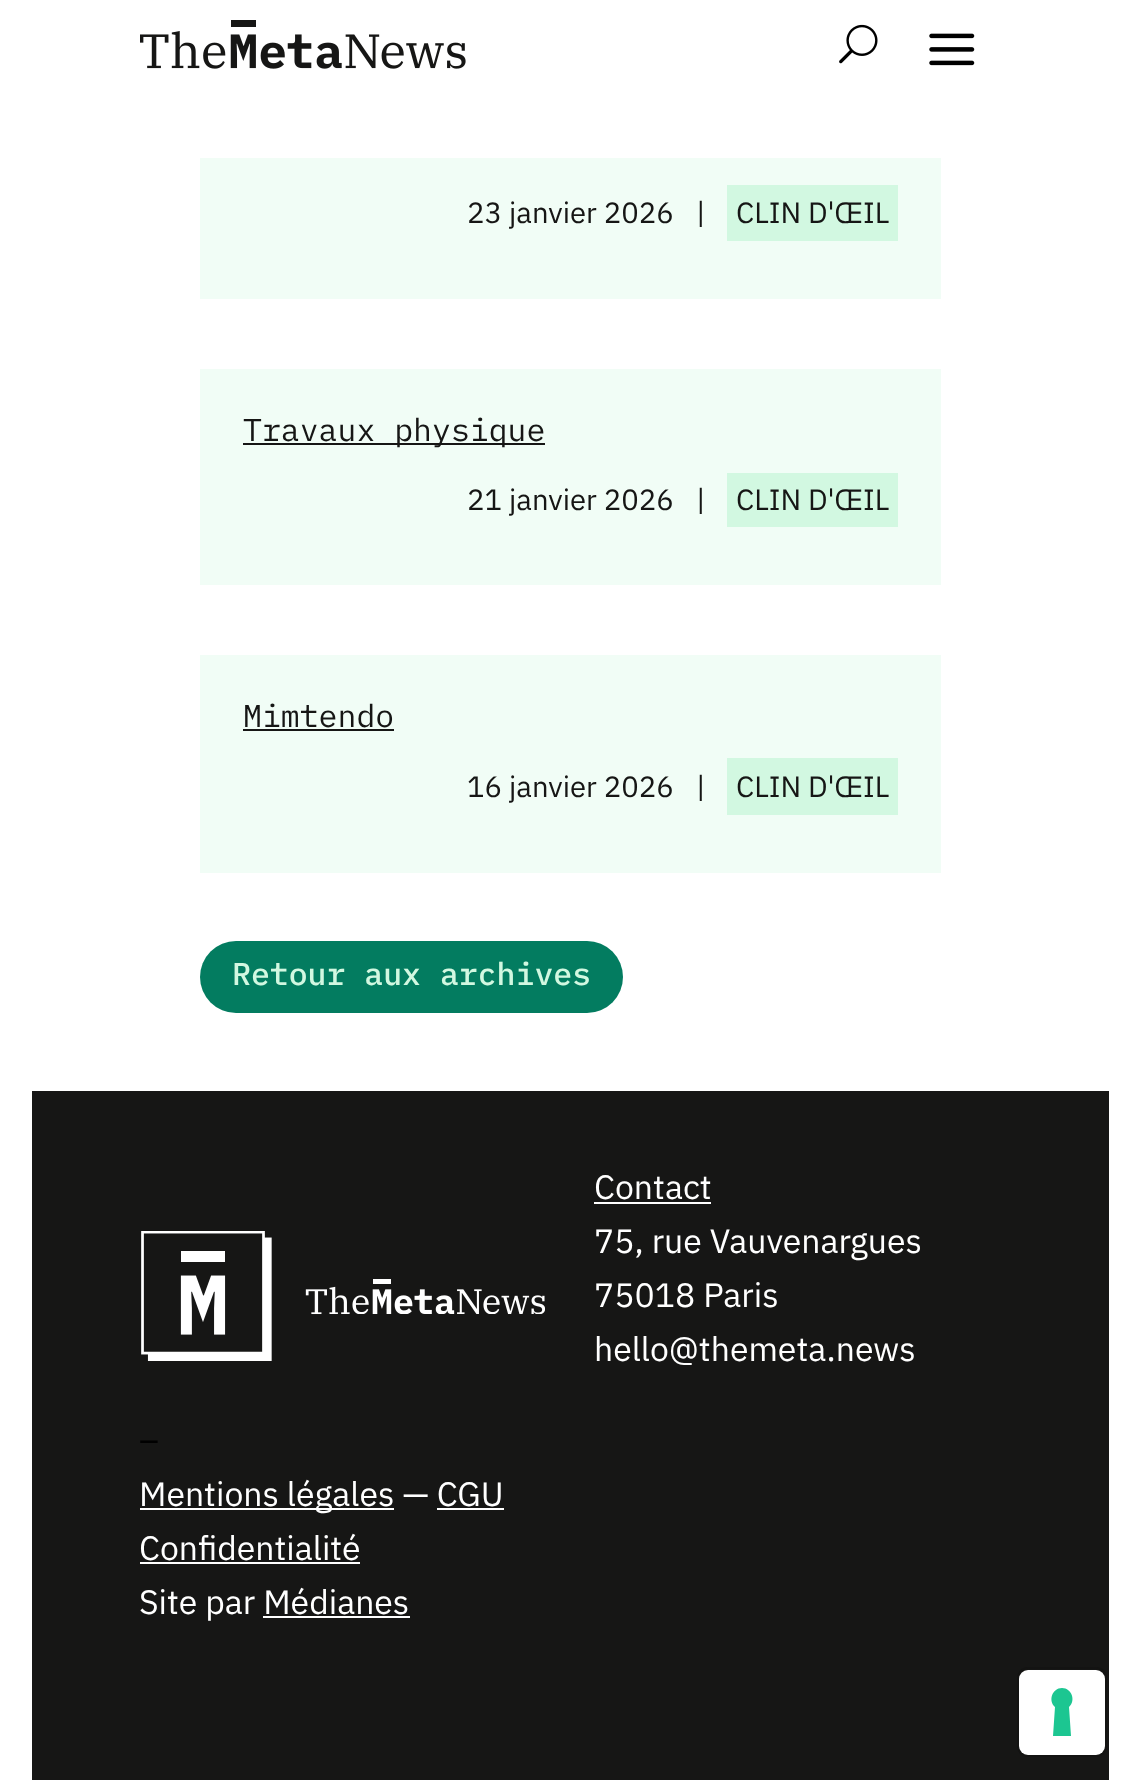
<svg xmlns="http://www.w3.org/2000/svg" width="1139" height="1791">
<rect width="100%" height="100%" fill="#fff"/>
<image x="140" y="20" width="326" height="49" href="media/1.png"/>
<image x="839" y="24" width="39" height="40" href="media/2.png"/>
<image x="929" y="33" width="46" height="33" href="media/3.png"/>
<rect x="200" y="158" width="741" height="141" fill="#f1fdf6"/>
<text x="467" y="223" style="font-family:IBM Plex Sans;font-size:29.25px;fill:#161615">23 janvier 2026</text>
<text x="692" y="223" style="font-family:IBM Plex Mono;font-size:29.25px;fill:#161615">|</text>
<rect x="727" y="185" width="171" height="56" fill="#d2f8e1"/>
<text x="736" y="223" style="font-family:IBM Plex Sans;font-size:29.25px;fill:#161615">CLIN D'ŒIL</text>
<rect x="200" y="369" width="741" height="216" fill="#f1fdf6"/>
<rect x="243" y="443" width="302" height="2" fill="#161615"/>
<text x="243" y="441" style="font-family:IBM Plex Mono;font-size:31.5px;fill:#161615">Travaux physique</text>
<text x="467" y="510" style="font-family:IBM Plex Sans;font-size:29.25px;fill:#161615">21 janvier 2026</text>
<text x="692" y="510" style="font-family:IBM Plex Mono;font-size:29.25px;fill:#161615">|</text>
<rect x="727" y="473" width="171" height="54" fill="#d2f8e1"/>
<text x="736" y="510" style="font-family:IBM Plex Sans;font-size:29.25px;fill:#161615">CLIN D'ŒIL</text>
<rect x="200" y="655" width="741" height="218" fill="#f1fdf6"/>
<text x="243" y="727" style="font-family:IBM Plex Mono;font-size:31.5px;fill:#161615">Mimtendo</text>
<rect x="243" y="729" width="151" height="2" fill="#161615"/>
<text x="467" y="797" style="font-family:IBM Plex Sans;font-size:29.25px;fill:#161615">16 janvier 2026</text>
<text x="692" y="797" style="font-family:IBM Plex Mono;font-size:29.25px;fill:#161615">|</text>
<rect x="727" y="758" width="171" height="57" fill="#d2f8e1"/>
<text x="736" y="797" style="font-family:IBM Plex Sans;font-size:29.25px;fill:#161615">CLIN D'ŒIL</text>
<rect x="200" y="941" width="423" height="72" rx="36" fill="#037c60"/>
<text x="232" y="985" style="font-family:IBM Plex Mono;font-size:31.5px;font-weight:500;fill:#d2f8e1">Retour aux archives</text>
<rect x="32" y="1091" width="1077" height="689" fill="#161615"/>
<image x="141" y="1231" width="404" height="130" href="media/4.png"/>
<text x="594" y="1199" style="font-family:IBM Plex Sans;font-size:33.75px;fill:#fff">Contact</text>
<rect x="594" y="1202" width="117" height="2" fill="#fff"/>
<text x="594" y="1253" style="font-family:IBM Plex Sans;font-size:33.75px;fill:#fff">75, rue Vauvenargues</text>
<text x="594" y="1307" style="font-family:IBM Plex Sans;font-size:33.75px;fill:#fff">75018 Paris</text>
<text x="594" y="1361" style="font-family:IBM Plex Sans;font-size:33.75px;fill:#fff">hello@themeta.news</text>
<text x="139" y="1452" style="font-family:IBM Plex Sans;font-size:33.75px;fill:#000">–</text>
<rect x="140" y="1508" width="254" height="2" fill="#fff"/>
<text x="139" y="1506" style="font-family:IBM Plex Sans;font-size:33.75px;fill:#fff">Mentions légales — CGU</text>
<rect x="437" y="1508" width="67" height="2" fill="#fff"/>
<text x="139" y="1560" style="font-family:IBM Plex Sans;font-size:33.75px;fill:#fff">Confidentialité</text>
<rect x="140" y="1562" width="220" height="2" fill="#fff"/>
<text x="139" y="1614" style="font-family:IBM Plex Sans;font-size:33.75px;fill:#fff">Site par Médianes</text>
<rect x="263" y="1616" width="147" height="2" fill="#fff"/>
<rect x="1018" y="1668" width="88" height="88" rx="10" fill="none" stroke="#131312" stroke-width="2"/>
<rect x="1019" y="1670" width="86" height="85" rx="9" fill="#fff"/>
<path d="M1062 1688c10 0 14 13 7 19l2 29h-18l2-29c-7-6-3-19 7-19z" fill="#1cc691" fill-rule="evenodd"/>
</svg>
